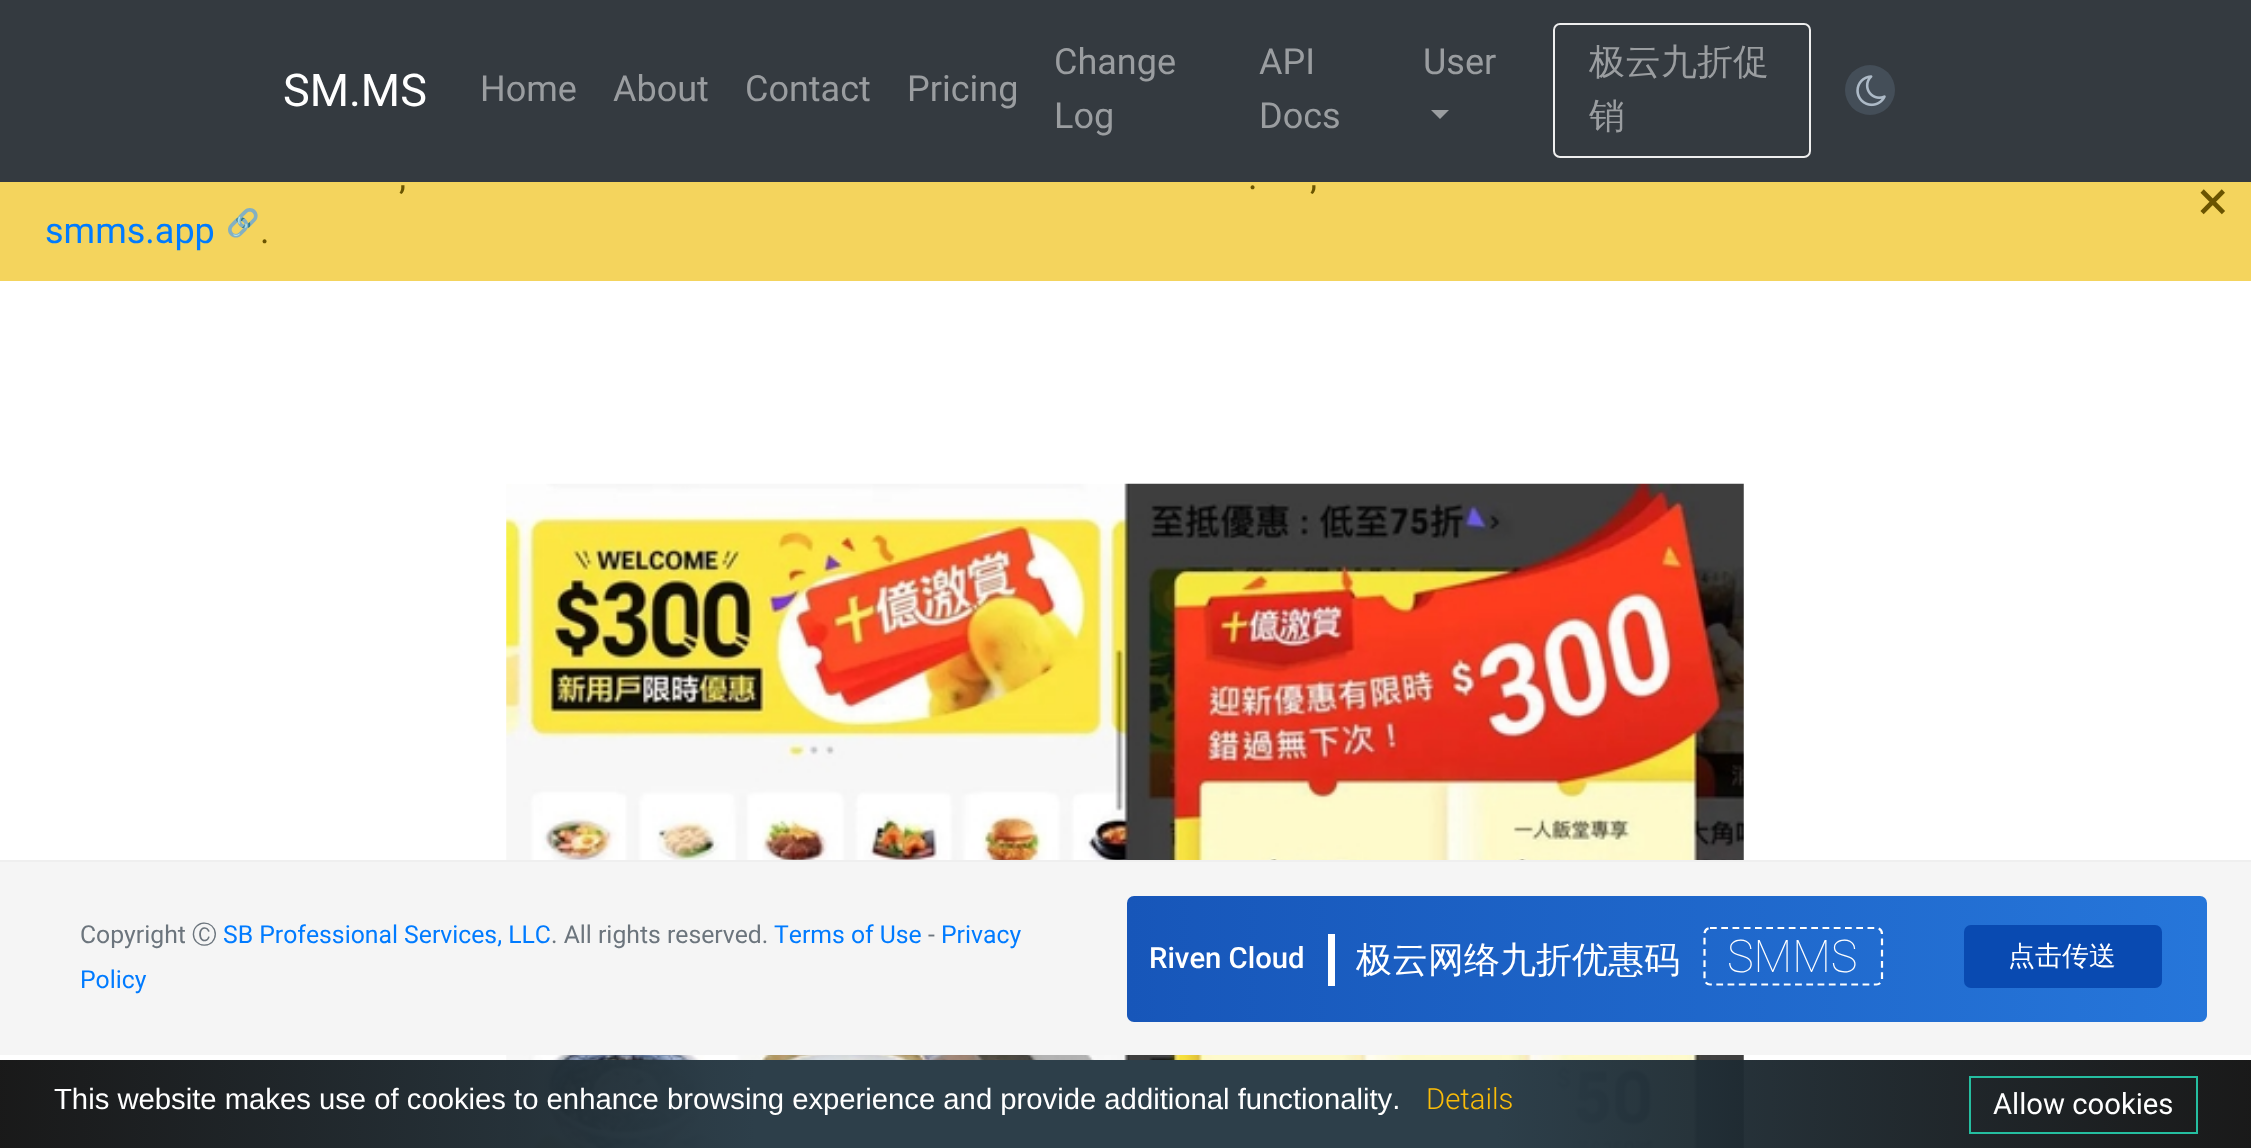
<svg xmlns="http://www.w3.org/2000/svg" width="2251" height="1148">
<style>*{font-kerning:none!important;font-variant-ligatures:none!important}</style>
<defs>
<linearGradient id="g1" gradientUnits="userSpaceOnUse" x1="2207" y1="959" x2="1127" y2="959"><stop offset="0" stop-color="#2676da"/><stop offset="1" stop-color="#1756b9"/></linearGradient>
<radialGradient id="g2" gradientUnits="userSpaceOnUse" cx="1126" cy="1105" r="1127"><stop offset="0.33" stop-color="#2d3f4a"/><stop offset="1" stop-color="#000" stop-opacity="0.9"/></radialGradient>
</defs>
<rect width="100%" height="100%" fill="#fff"/>
<rect width="2251" height="182" fill="#343a40"/>
<text x="283" y="106" style="font-family:Roboto;font-size:45px;fill:#fff">SM.MS</text>
<text x="480" y="101" style="font-family:Roboto;font-size:36px;fill:#9a9da0">Home</text>
<text x="613" y="101" style="font-family:Roboto;font-size:36px;fill:#9a9da0">About</text>
<text x="745" y="101" style="font-family:Roboto;font-size:36px;fill:#9a9da0">Contact</text>
<text x="907" y="101" style="font-family:Roboto;font-size:36px;fill:#9a9da0">Pricing</text>
<text x="1054" y="74" style="font-family:Roboto;font-size:36px;fill:#9a9da0">Change</text>
<text x="1054" y="128" style="font-family:Roboto;font-size:36px;fill:#9a9da0">Log</text>
<text x="1259" y="74" style="font-family:Roboto;font-size:36px;fill:#9a9da0">API</text>
<text x="1259" y="128" style="font-family:Roboto;font-size:36px;fill:#9a9da0">Docs</text>
<text x="1423" y="74" style="font-family:Roboto;font-size:36px;fill:#9a9da0">User</text>
<path d="M1431 110h18l-9 9z" fill="#9a9da0"/>
<rect x="1554" y="24" width="256" height="133" rx="6" fill="none" stroke="#eee" stroke-width="2"/>
<text x="1589" y="74" style="font-family:WenQuanYi Zen Hei;font-size:36px;font-weight:500;fill:#9a9da0">极云九折促</text>
<text x="1589" y="128" style="font-family:WenQuanYi Zen Hei;font-size:36px;font-weight:500;fill:#9a9da0">销</text>
<circle cx="1870" cy="90" r="25" fill="#444e58"/>
<image x="1856" y="75" width="30" height="32" href="media/1.png"/>
<rect y="182" width="2251" height="99" fill="#f4d45d"/>
<text x="399" y="189" style="font-family:Roboto;font-size:36px;fill:#6a5400">,</text>
<text x="1248" y="189" style="font-family:Roboto;font-size:36px;fill:#6a5400">.</text>
<text x="1310" y="189" style="font-family:Roboto;font-size:36px;fill:#6a5400">,</text>
<text x="45" y="243" style="font-family:Roboto;font-size:36px;fill:#007bff">smms.app</text>
<text x="226" y="232" style="font-family:Noto Color Emoji;font-size:27px;fill:#007bff">🔗</text>
<text x="260" y="243" style="font-family:Roboto;font-size:36px;fill:#6a5400">.</text>
<text x="2198" y="220" style="font-family:Roboto;font-size:56px;fill:#6a5400">×</text>
<image x="506" y="483" width="1238" height="665" href="media/2.png"/>
<rect y="862" width="2251" height="193" fill="#f5f5f5"/>
<rect y="860" width="2251" height="2" fill="#efefef"/>
<text x="80" y="943" style="font-family:Roboto;font-size:24.75px;fill:#6c757d">Copyright</text>
<text x="192" y="943" style="font-family:WenQuanYi Zen Hei;font-size:24.75px;font-weight:500;fill:#6c757d">Ⓒ</text>
<text x="223" y="943" style="font-family:Roboto;font-size:24.75px;fill:#007bff">SB Professional Services, LLC</text>
<text x="551" y="943" style="font-family:Roboto;font-size:24.75px;fill:#6c757d">. All rights reserved.</text>
<text x="774" y="943" style="font-family:Roboto;font-size:24.75px;fill:#007bff">Terms of Use</text>
<text x="928" y="943" style="font-family:Roboto;font-size:24.75px;fill:#6c757d">-</text>
<text x="941" y="943" style="font-family:Roboto;font-size:24.75px;fill:#007bff">Privacy</text>
<text x="80" y="988" style="font-family:Roboto;font-size:24.75px;fill:#007bff">Policy</text>
<rect x="1127" y="896" width="1080" height="126" rx="7" fill="url(#g1)"/>
<rect x="1328" y="934" width="7" height="52" fill="#fff"/>
<text x="1149" y="968" style="font-family:Roboto;font-size:29.25px;font-weight:500;fill:#fff">Riven Cloud</text>
<text x="1356" y="972" style="font-family:WenQuanYi Zen Hei;font-size:36px;font-weight:500;fill:#fff">极云网络九折优惠码</text>
<path d="M1710 928h166.5c3 0 5.5 2.5 5.5 6v45c0 3-2.5 5.5-5.5 5.5h-166.5c-3 0-5.5-2.5-5.5-5.5v-45c0-3.5 2.5-6 5.5-6z" fill="none" stroke="#fff" stroke-width="2.2" stroke-dasharray="6.75 4.5"/>
<text x="1727" y="972" style="font-family:Roboto;font-size:45px;font-weight:100;fill:#fff">SMMS</text>
<rect x="1964" y="925" width="198" height="63" rx="7" fill="#094ab1"/>
<text x="2008" y="965" style="font-family:WenQuanYi Zen Hei;font-size:27px;font-weight:500;fill:#fff">点击传送</text>
<rect y="1060" width="2251" height="88" fill="url(#g2)"/>
<text x="54" y="1109" style="font-family:Liberation Sans;font-size:29.25px;fill:#fff">This website makes use of cookies to enhance browsing experience and provide additional functionality.</text>
<text x="1426" y="1109" style="font-family:Roboto;font-size:29.25px;font-weight:300;fill:#fabc09">Details</text>
<rect x="1970" y="1077" width="227" height="56" fill="none" stroke="#25bea0" stroke-width="2"/>
<text x="1993" y="1114" style="font-family:Roboto;font-size:29.25px;fill:#fff">Allow cookies</text>
</svg>
